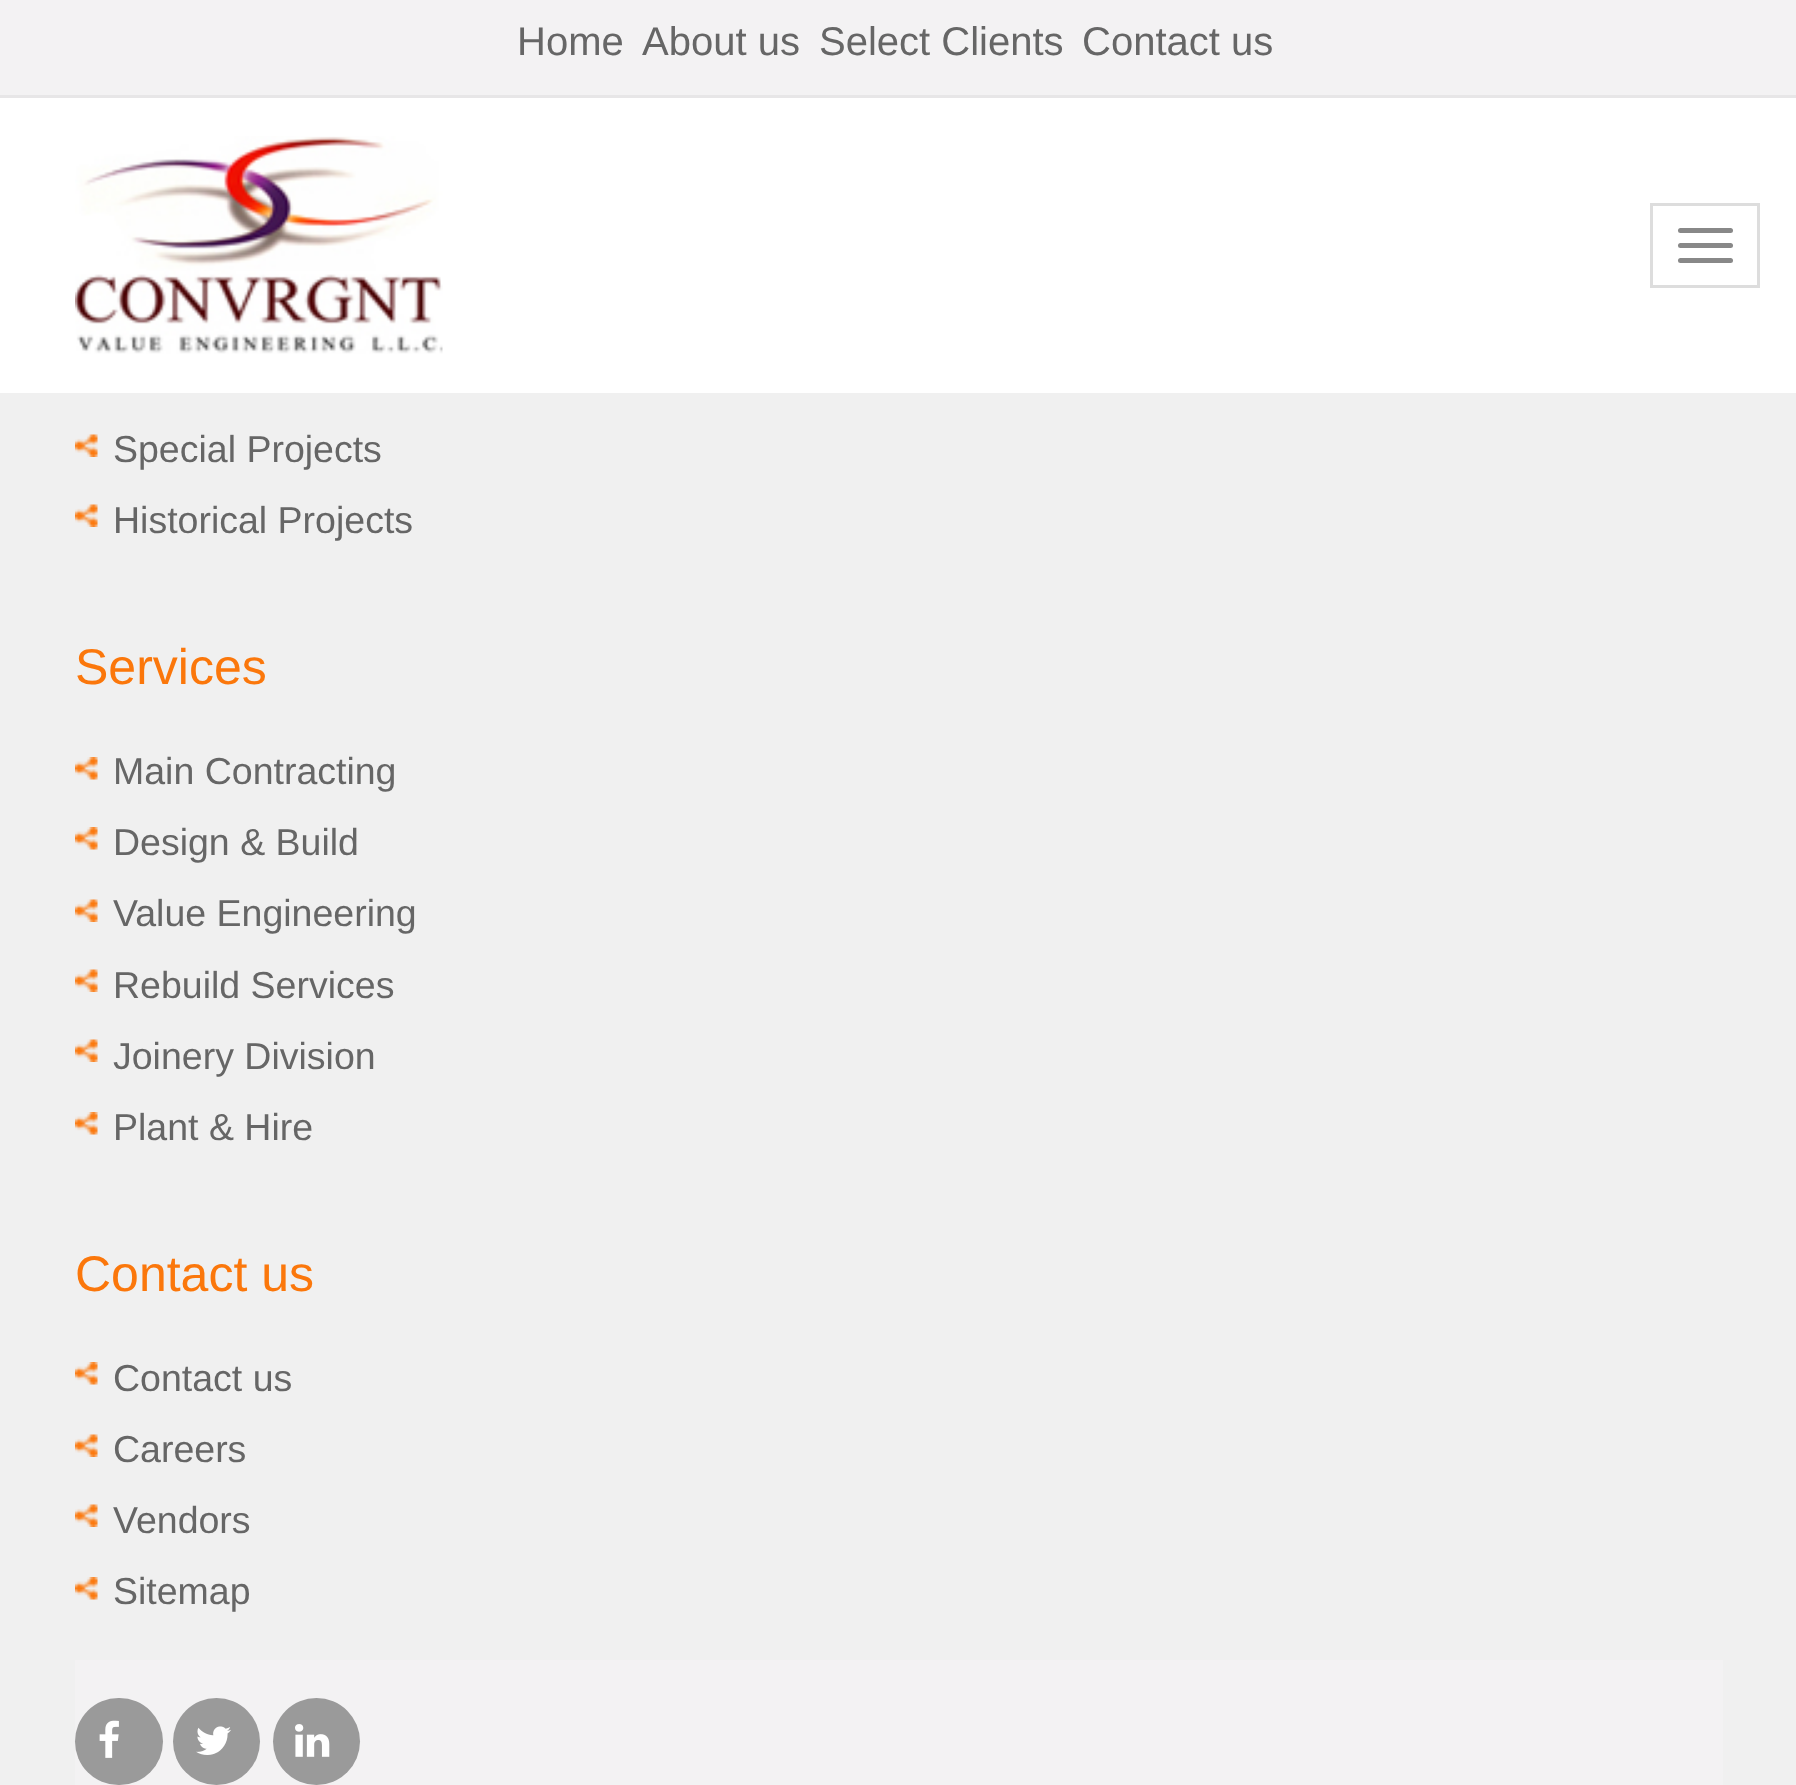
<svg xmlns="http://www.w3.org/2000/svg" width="1796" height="1785">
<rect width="100%" height="100%" fill="#f0f0f0"/>
<rect width="1796" height="95" fill="#f3f2f3"/>
<rect y="95" width="1796" height="3" fill="#e7e6e7"/>
<text x="517" y="55" style="font-family:Liberation Sans;font-size:40px;fill:#666">Home</text>
<text x="642" y="55" style="font-family:Liberation Sans;font-size:40px;fill:#666">About us</text>
<text x="819" y="55" style="font-family:Liberation Sans;font-size:40px;fill:#666">Select Clients</text>
<text x="1082" y="55" style="font-family:Liberation Sans;font-size:40px;fill:#666">Contact us</text>
<rect y="98" width="1796" height="295" fill="#fff"/>
<image x="75" y="136" width="368" height="218" href="media/1.png"/>
<rect x="1651.5" y="204.5" width="107" height="82" fill="none" stroke="#ddd" stroke-width="3"/>
<rect x="1678" y="228" width="55" height="5" rx="2.5" fill="#888"/>
<rect x="1678" y="243" width="55" height="5" rx="2.5" fill="#888"/>
<rect x="1678" y="258" width="55" height="5" rx="2.5" fill="#888"/>
<image x="75" y="434" width="23" height="23" href="media/2.png"/>
<text x="113" y="462" style="font-family:Liberation Sans;font-size:37.5px;fill:#666">Special Projects</text>
<image x="75" y="504" width="23" height="23" href="media/3.png"/>
<text x="113" y="533" style="font-family:Liberation Sans;font-size:37.5px;fill:#666">Historical Projects</text>
<text x="75" y="684" style="font-family:Liberation Sans;font-size:50px;fill:#fb770b">Services</text>
<image x="75" y="757" width="23" height="23" href="media/4.png"/>
<text x="113" y="784" style="font-family:Liberation Sans;font-size:37.5px;fill:#666">Main Contracting</text>
<image x="75" y="827" width="23" height="23" href="media/5.png"/>
<text x="113" y="855" style="font-family:Liberation Sans;font-size:37.5px;fill:#666">Design &amp; Build</text>
<image x="75" y="899" width="23" height="23" href="media/3.png"/>
<text x="113" y="926" style="font-family:Liberation Sans;font-size:37.5px;fill:#666">Value Engineering</text>
<image x="75" y="969" width="23" height="23" href="media/2.png"/>
<text x="113" y="998" style="font-family:Liberation Sans;font-size:37.5px;fill:#666">Rebuild Services</text>
<image x="75" y="1039" width="23" height="23" href="media/2.png"/>
<text x="113" y="1069" style="font-family:Liberation Sans;font-size:37.5px;fill:#666">Joinery Division</text>
<image x="75" y="1112" width="23" height="23" href="media/5.png"/>
<text x="113" y="1140" style="font-family:Liberation Sans;font-size:37.5px;fill:#666">Plant &amp; Hire</text>
<text x="75" y="1291" style="font-family:Liberation Sans;font-size:50px;fill:#fb770b">Contact us</text>
<image x="75" y="1362" width="23" height="23" href="media/5.png"/>
<text x="113" y="1391" style="font-family:Liberation Sans;font-size:37.5px;fill:#666">Contact us</text>
<image x="75" y="1434" width="23" height="23" href="media/2.png"/>
<text x="113" y="1462" style="font-family:Liberation Sans;font-size:37.5px;fill:#666">Careers</text>
<image x="75" y="1504" width="23" height="23" href="media/2.png"/>
<text x="113" y="1533" style="font-family:Liberation Sans;font-size:37.5px;fill:#666">Vendors</text>
<image x="75" y="1577" width="23" height="23" href="media/6.png"/>
<text x="113" y="1604" style="font-family:Liberation Sans;font-size:37.5px;fill:#666">Sitemap</text>
<rect x="75" y="1660" width="1648" height="125" fill="#f3f2f3"/>
<rect x="75" y="1698" width="88" height="87" rx="43.5" fill="#9a9a9a"/>
<image x="99" y="1720" width="20" height="38" href="media/7.png"/>
<circle cx="216.5" cy="1741.5" r="43.5" fill="#9a9a9a"/>
<image x="196" y="1726" width="35" height="29" href="media/8.png"/>
<circle cx="316.5" cy="1741.5" r="43.5" fill="#9a9a9a"/>
<image x="295" y="1724" width="35" height="33" href="media/9.png"/>
</svg>
